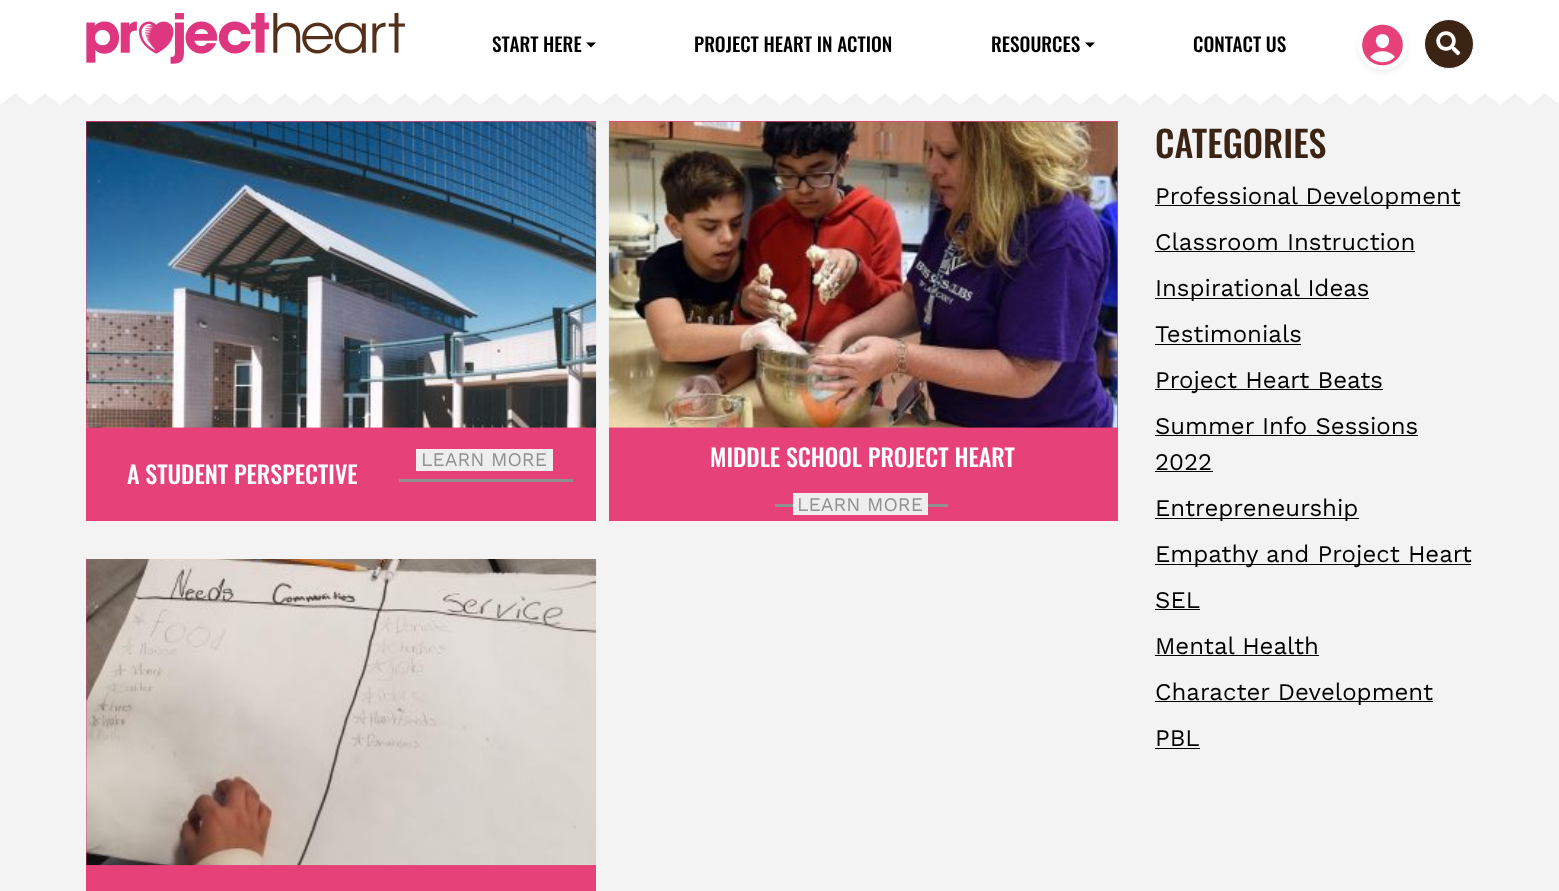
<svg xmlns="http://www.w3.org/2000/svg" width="1559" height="891">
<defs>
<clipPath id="clip1"><path d="M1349 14h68v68h-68zm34 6c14 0 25 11 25 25c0 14-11 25-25 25c-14 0-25-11-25-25c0-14 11-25 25-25z" clip-rule="evenodd"/></clipPath>
</defs>
<rect width="100%" height="100%" fill="#f3f3f3"/>
<rect width="1559" height="89" fill="#fff"/>
<image x="86" y="13" width="319" height="51" href="media/1.png"/>
<text x="492" y="52" style="font-family:Oswald;font-size:19.25px;font-weight:500;fill:#000">START HERE</text>
<path d="M586 42.5h10l-5 5z" fill="#000"/>
<text x="694" y="52" style="font-family:Oswald;font-size:19.25px;font-weight:500;fill:#000">PROJECT HEART IN ACTION</text>
<text x="991" y="52" style="font-family:Oswald;font-size:19.25px;font-weight:500;fill:#000">RESOURCES</text>
<path d="M1085 42.5h10l-5 5z" fill="#000"/>
<text x="1193" y="52" style="font-family:Oswald;font-size:19.25px;font-weight:500;fill:#000">CONTACT US</text>
<g clip-path="url(#clip1)">
<rect x="1358" y="23" width="50" height="50" rx="25" fill="#26262612" filter="blur(2.5px)"/>
</g>
<image x="1362" y="24" width="41" height="42" href="media/2.png"/>
<circle cx="1449" cy="44" r="24.5" fill="#3c2415" stroke="#fff"/>
<image x="1436" y="31" width="25" height="25" href="media/3.png"/>
<image x="0" y="89" width="1559" height="16" href="media/4.png"/>
<rect x="86" y="121" width="510" height="400" fill="#e7417a"/>
<image x="86" y="121" width="511" height="307" href="media/5.png"/>
<rect x="416" y="449" width="137" height="22" fill="#eee"/>
<text x="421" y="466" style="font-family:Work Sans;font-size:19.25px;fill:#919191">LEARN MORE</text>
<rect x="399" y="479" width="174" height="3" fill="#919191"/>
<text x="127" y="484" style="font-family:Oswald;font-size:24px;font-weight:500;fill:#fff">A STUDENT PERSPECTIVE</text>
<rect x="609" y="121" width="509" height="400" fill="#e7417a"/>
<image x="608" y="121" width="510" height="307" href="media/6.png"/>
<text x="710" y="467" style="font-family:Oswald;font-size:24px;font-weight:500;fill:#fff">MIDDLE SCHOOL PROJECT HEART</text>
<rect x="775" y="504" width="173" height="3" fill="#919191"/>
<rect x="793" y="493" width="135" height="22" fill="#eee"/>
<text x="797" y="511" style="font-family:Work Sans;font-size:19.25px;fill:#919191">LEARN MORE</text>
<rect x="86" y="559" width="510" height="332" fill="#e7417a"/>
<image x="86" y="559" width="511" height="307" href="media/7.png"/>
<text x="1155" y="158" style="font-family:Oswald;font-size:36px;font-weight:500;fill:#3c2415">CATEGORIES</text>
<rect x="1155" y="205" width="305" height="1" fill="#000"/>
<text x="1155" y="204" style="font-family:Work Sans;font-size:24px;fill:#000">Professional Development</text>
<text x="1155" y="250" style="font-family:Work Sans;font-size:24px;fill:#000">Classroom Instruction</text>
<rect x="1155" y="251" width="260" height="1" fill="#000"/>
<rect x="1155" y="298" width="214" height="1" fill="#000"/>
<text x="1155" y="296" style="font-family:Work Sans;font-size:24px;fill:#000">Inspirational Ideas</text>
<text x="1155" y="342" style="font-family:Work Sans;font-size:24px;fill:#000">Testimonials</text>
<rect x="1155" y="344" width="146" height="1" fill="#000"/>
<rect x="1155" y="389" width="228" height="1" fill="#000"/>
<text x="1155" y="388" style="font-family:Work Sans;font-size:24px;fill:#000">Project Heart Beats</text>
<text x="1155" y="434" style="font-family:Work Sans;font-size:24px;fill:#000">Summer Info Sessions</text>
<rect x="1155" y="435" width="263" height="1" fill="#000"/>
<text x="1155" y="470" style="font-family:Work Sans;font-size:24px;fill:#000">2022</text>
<rect x="1155" y="471" width="58" height="1" fill="#000"/>
<rect x="1155" y="518" width="204" height="1" fill="#000"/>
<text x="1155" y="516" style="font-family:Work Sans;font-size:24px;fill:#000">Entrepreneurship</text>
<rect x="1155" y="564" width="316" height="1" fill="#000"/>
<text x="1155" y="562" style="font-family:Work Sans;font-size:24px;fill:#000">Empathy and Project Heart</text>
<text x="1155" y="608" style="font-family:Work Sans;font-size:24px;fill:#000">SEL</text>
<rect x="1155" y="609" width="45" height="1" fill="#000"/>
<text x="1155" y="654" style="font-family:Work Sans;font-size:24px;fill:#000">Mental Health</text>
<rect x="1155" y="655" width="164" height="1" fill="#000"/>
<rect x="1155" y="701" width="278" height="1" fill="#000"/>
<text x="1155" y="700" style="font-family:Work Sans;font-size:24px;fill:#000">Character Development</text>
<text x="1155" y="746" style="font-family:Work Sans;font-size:24px;fill:#000">PBL</text>
<rect x="1155" y="748" width="45" height="1" fill="#000"/>
</svg>
